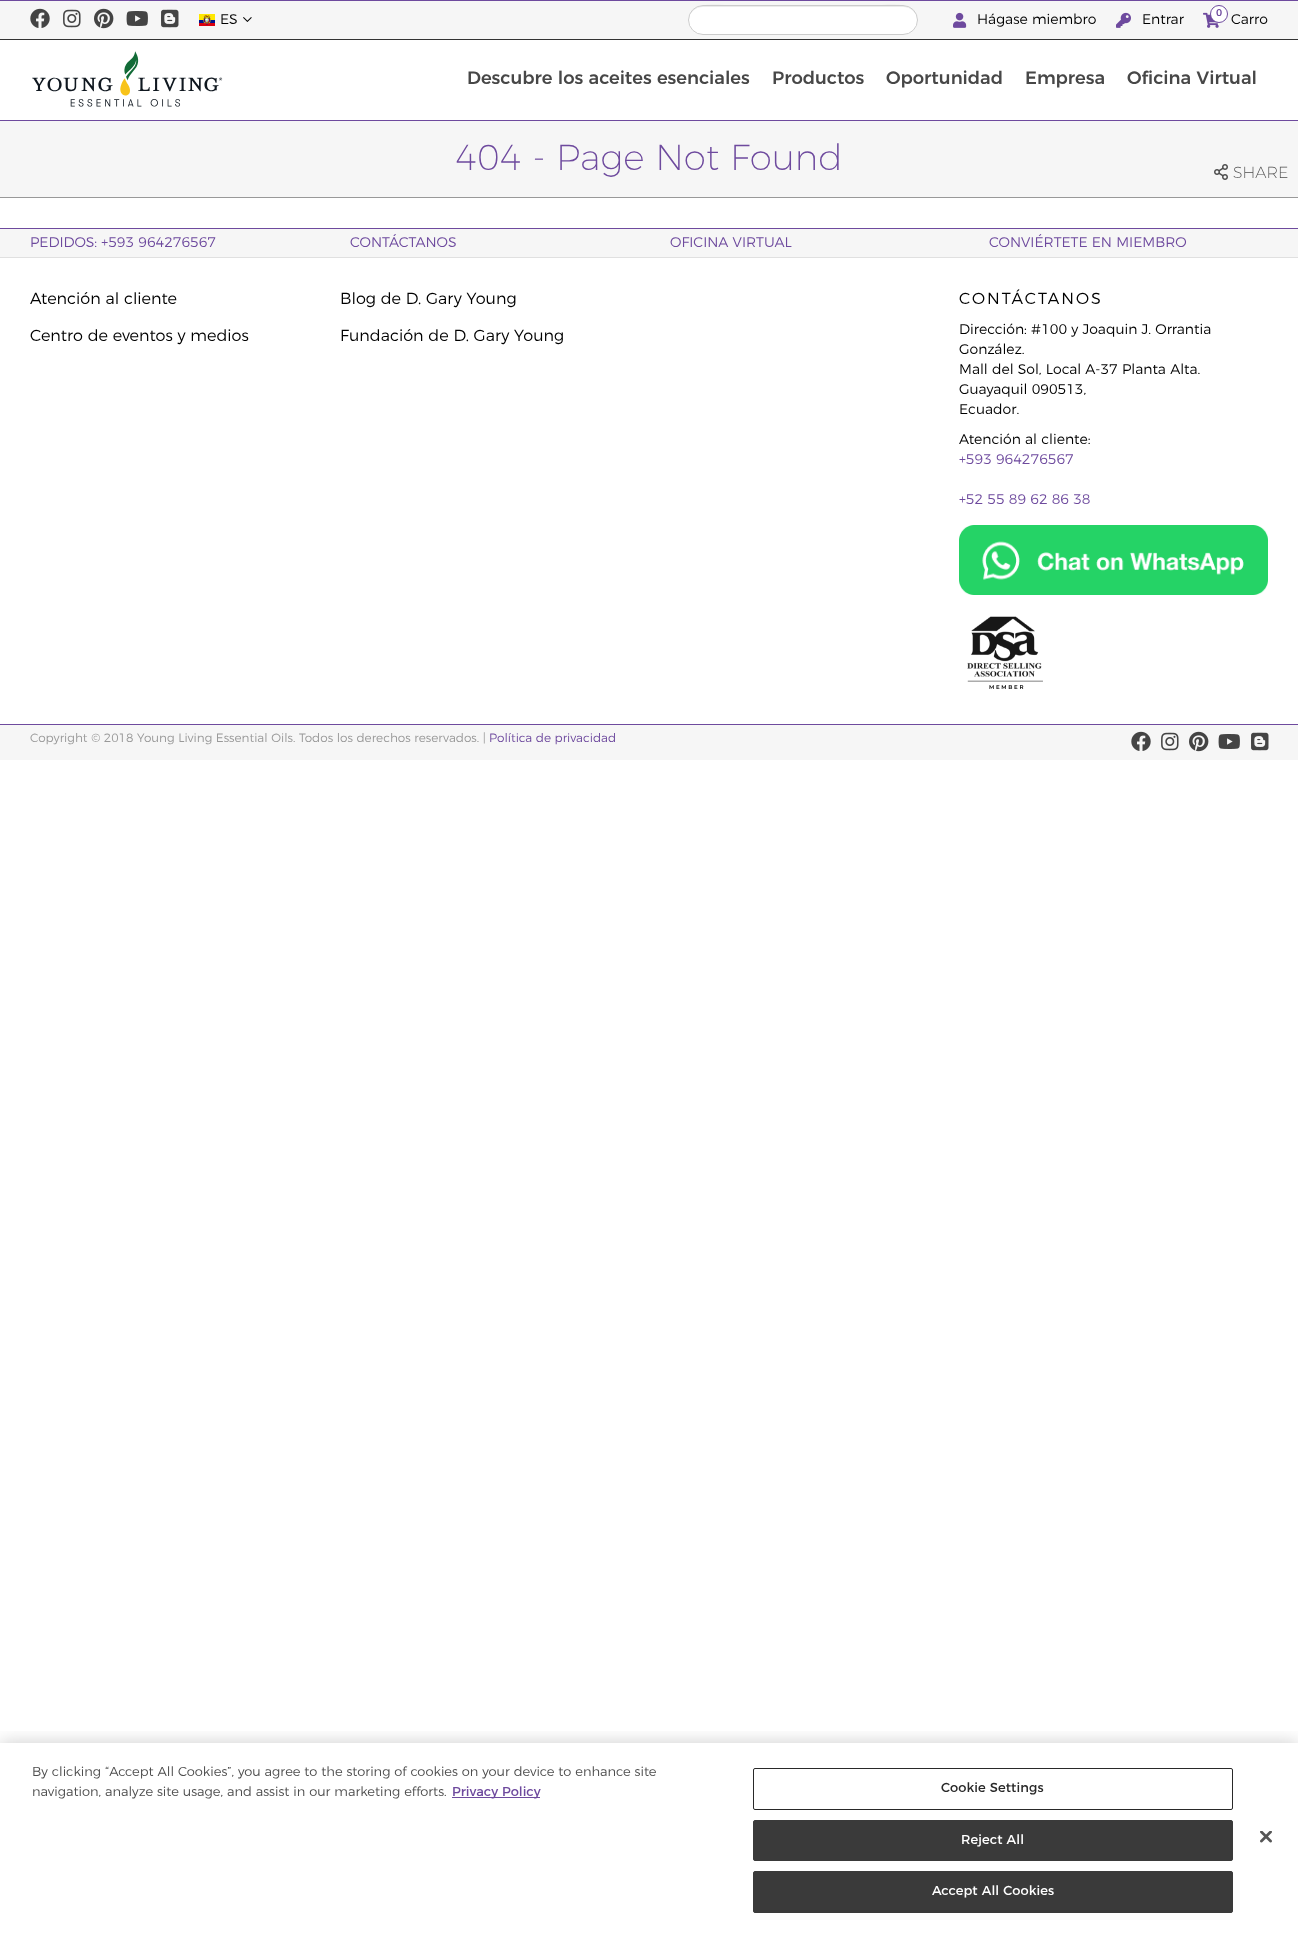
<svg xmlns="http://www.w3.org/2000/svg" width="1298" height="1933">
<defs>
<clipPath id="clip1"><rect x="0" y="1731" width="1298" height="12"/></clipPath>
</defs>
<rect width="100%" height="100%" fill="#fff"/>
<rect y="1" width="1298" height="38" fill="#f6f6f6"/>
<rect width="1298" height="1" fill="#6e4a9e"/>
<rect y="39" width="1298" height="1" fill="#333"/>
<image x="30" y="8" width="20" height="20" href="media/1.png"/>
<image x="63" y="9" width="18" height="19" href="media/2.png"/>
<image x="94" y="8" width="20" height="21" href="media/3.png"/>
<image x="126" y="11" width="22" height="15" href="media/4.png"/>
<image x="161" y="9" width="18" height="19" href="media/5.png"/>
<image x="199" y="14" width="16" height="12" href="media/6.png"/>
<text x="220" y="24" style="font-family:Montserrat;font-size:14px;font-weight:300;fill:#000">ES</text>
<image x="243" y="17" width="9" height="5" href="media/7.png"/>
<rect x="688" y="5" width="230" height="30" rx="15" fill="#fff"/>
<path d="M703 7h200c8 0 14 6 14 13c1-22-39-14-47-14h-134c-8 0-48-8-47 14c0-7 6-13 14-13z" fill="#ebebeb"/>
<rect x="688.5" y="5.5" width="229" height="29" rx="14.5" fill="none" stroke="#ccc"/>
<image x="953" y="12" width="14" height="16" href="media/8.png"/>
<text x="977" y="24" style="font-family:Montserrat;font-size:14px;font-weight:300;fill:#000">Hágase miembro</text>
<image x="1116" y="12" width="15" height="16" href="media/9.png"/>
<text x="1142" y="24" style="font-family:Montserrat;font-size:14px;font-weight:300;fill:#000">Entrar</text>
<image x="1203" y="12" width="16" height="16" href="media/10.png"/>
<circle cx="1219" cy="14" r="8.5" fill="#fff" stroke="#6e4a9e"/>
<text x="1216" y="16" style="font-family:Montserrat;font-size:10px;font-weight:500;fill:#6e4a9e">0</text>
<text x="1231" y="24" style="font-family:Montserrat;font-size:14px;font-weight:300;fill:#000">Carro</text>
<image x="32" y="51" width="191" height="56" href="media/11.png"/>
<text x="467" y="84" style="font-family:Montserrat;font-size:18px;font-weight:500;fill:#474747">Descubre los aceites esenciales</text>
<text x="772" y="84" style="font-family:Montserrat;font-size:18px;font-weight:500;fill:#474747">Productos</text>
<text x="886" y="84" style="font-family:Montserrat;font-size:18px;font-weight:500;fill:#474747">Oportunidad</text>
<text x="1025" y="84" style="font-family:Montserrat;font-size:18px;font-weight:500;fill:#474747">Empresa</text>
<text x="1127" y="84" style="font-family:Montserrat;font-size:18px;font-weight:500;fill:#474747">Oficina Virtual</text>
<rect y="121" width="1298" height="76" fill="#f6f6f6"/>
<rect y="120" width="1298" height="1" fill="#6e4a9e"/>
<rect y="197" width="1298" height="1" fill="#999"/>
<text x="455" y="170" style="font-family:Montserrat;font-size:36px;font-weight:200;fill:#6e4a9e">404 - Page Not Found</text>
<image x="1214" y="164" width="14" height="16" href="media/12.png"/>
<text x="1233" y="178" style="font-family:Montserrat;font-size:16px;font-weight:200;fill:#4d4d4d">SHARE</text>
<rect y="228" width="1298" height="1" fill="#6e4a9e"/>
<rect y="229" width="1298" height="28" fill="#f6f6f6"/>
<rect y="257" width="1298" height="1" fill="#e0e0e0"/>
<text x="30" y="247" style="font-family:Montserrat;font-size:14px;font-weight:300;fill:#6e4a9e">PEDIDOS: +593 964276567</text>
<text x="350" y="247" style="font-family:Montserrat;font-size:14px;font-weight:300;fill:#6e4a9e">CONTÁCTANOS</text>
<text x="670" y="247" style="font-family:Montserrat;font-size:14px;font-weight:300;fill:#6e4a9e">OFICINA VIRTUAL</text>
<text x="989" y="247" style="font-family:Montserrat;font-size:14px;font-weight:300;fill:#6e4a9e">CONVIÉRTETE EN MIEMBRO</text>
<text x="30" y="304" style="font-family:Montserrat;font-size:16px;font-weight:300;fill:#000">Atención al cliente</text>
<text x="30" y="341" style="font-family:Montserrat;font-size:16px;font-weight:300;fill:#000">Centro de eventos y medios</text>
<text x="340" y="304" style="font-family:Montserrat;font-size:16px;font-weight:300;fill:#000">Blog de D. Gary Young</text>
<text x="340" y="341" style="font-family:Montserrat;font-size:16px;font-weight:300;fill:#000">Fundación de D. Gary Young</text>
<text x="959" y="304" style="font-family:Montserrat;font-size:16px;font-weight:300;letter-spacing:2px;fill:#000">CONTÁCTANOS</text>
<text x="959" y="334" style="font-family:Montserrat;font-size:14px;font-weight:300;fill:#000">Dirección: #100 y Joaquin J. Orrantia</text>
<text x="959" y="354" style="font-family:Montserrat;font-size:14px;font-weight:300;fill:#000">González.</text>
<text x="959" y="374" style="font-family:Montserrat;font-size:14px;font-weight:300;fill:#000">Mall del Sol, Local A-37 Planta Alta.</text>
<text x="959" y="394" style="font-family:Montserrat;font-size:14px;font-weight:300;fill:#000">Guayaquil 090513,</text>
<text x="959" y="414" style="font-family:Montserrat;font-size:14px;font-weight:300;fill:#000">Ecuador.</text>
<text x="959" y="444" style="font-family:Montserrat;font-size:14px;font-weight:300;fill:#000">Atención al cliente:</text>
<text x="959" y="464" style="font-family:Montserrat;font-size:14px;font-weight:300;fill:#6e4a9e">+593 964276567</text>
<text x="959" y="504" style="font-family:Montserrat;font-size:14px;font-weight:300;fill:#6e4a9e">+52 55 89 62 86 38</text>
<image x="959" y="525" width="309" height="70" href="media/13.png"/>
<image x="967" y="616" width="76" height="73" href="media/14.png"/>
<rect y="725" width="1298" height="35" fill="#f6f6f6"/>
<rect y="724" width="1298" height="1" fill="#6e4a9e"/>
<text x="30" y="742" style="font-family:Montserrat;font-size:12px;font-weight:300;fill:#999">Copyright © 2018 Young Living Essential Oils. Todos los derechos reservados. |</text>
<text x="489" y="742" style="font-family:Montserrat;font-size:12px;font-weight:300;fill:#6e4a9e">Política de privacidad</text>
<image x="1131" y="731" width="20" height="20" href="media/1.png"/>
<image x="1161" y="732" width="18" height="19" href="media/2.png"/>
<image x="1189" y="731" width="20" height="21" href="media/3.png"/>
<image x="1218" y="734" width="22" height="15" href="media/4.png"/>
<image x="1251" y="732" width="18" height="19" href="media/5.png"/>
<g clip-path="url(#clip1)">
<rect y="1743" width="1298" height="190" fill="#00000033" filter="blur(9px)"/>
</g>
<text x="32" y="1776" style="font-family:Montserrat;font-size:13px;font-weight:300;fill:#4d4d4d">By clicking “Accept All Cookies”, you agree to the storing of cookies on your device to enhance site</text>
<text x="32" y="1796" style="font-family:Montserrat;font-size:13px;font-weight:300;fill:#4d4d4d">navigation, analyze site usage, and assist in our marketing efforts.</text>
<rect x="452" y="1797" width="88" height="1" fill="#6e4a9e"/>
<text x="452" y="1796" style="font-family:Montserrat;font-size:13px;fill:#6e4a9e">Privacy Policy</text>
<rect x="753.5" y="1768.5" width="479" height="41" rx="1.5" fill="none" stroke="#292929"/>
<text x="941" y="1792" style="font-family:Montserrat;font-size:13px;letter-spacing:0.1px;fill:#292929">Cookie Settings</text>
<rect x="753.5" y="1820.5" width="479" height="40" rx="1.5" fill="#3a3a3a" stroke="#3a3a3a"/>
<text x="961" y="1844" style="font-family:Montserrat;font-size:13px;letter-spacing:0.1px;fill:#fff">Reject All</text>
<rect x="753.5" y="1871.5" width="479" height="41" rx="1.5" fill="#3a3a3a" stroke="#3a3a3a"/>
<text x="932" y="1895" style="font-family:Montserrat;font-size:13px;letter-spacing:0.1px;fill:#fff">Accept All Cookies</text>
<image x="1260" y="1831" width="12" height="12" href="media/15.png"/>
</svg>
